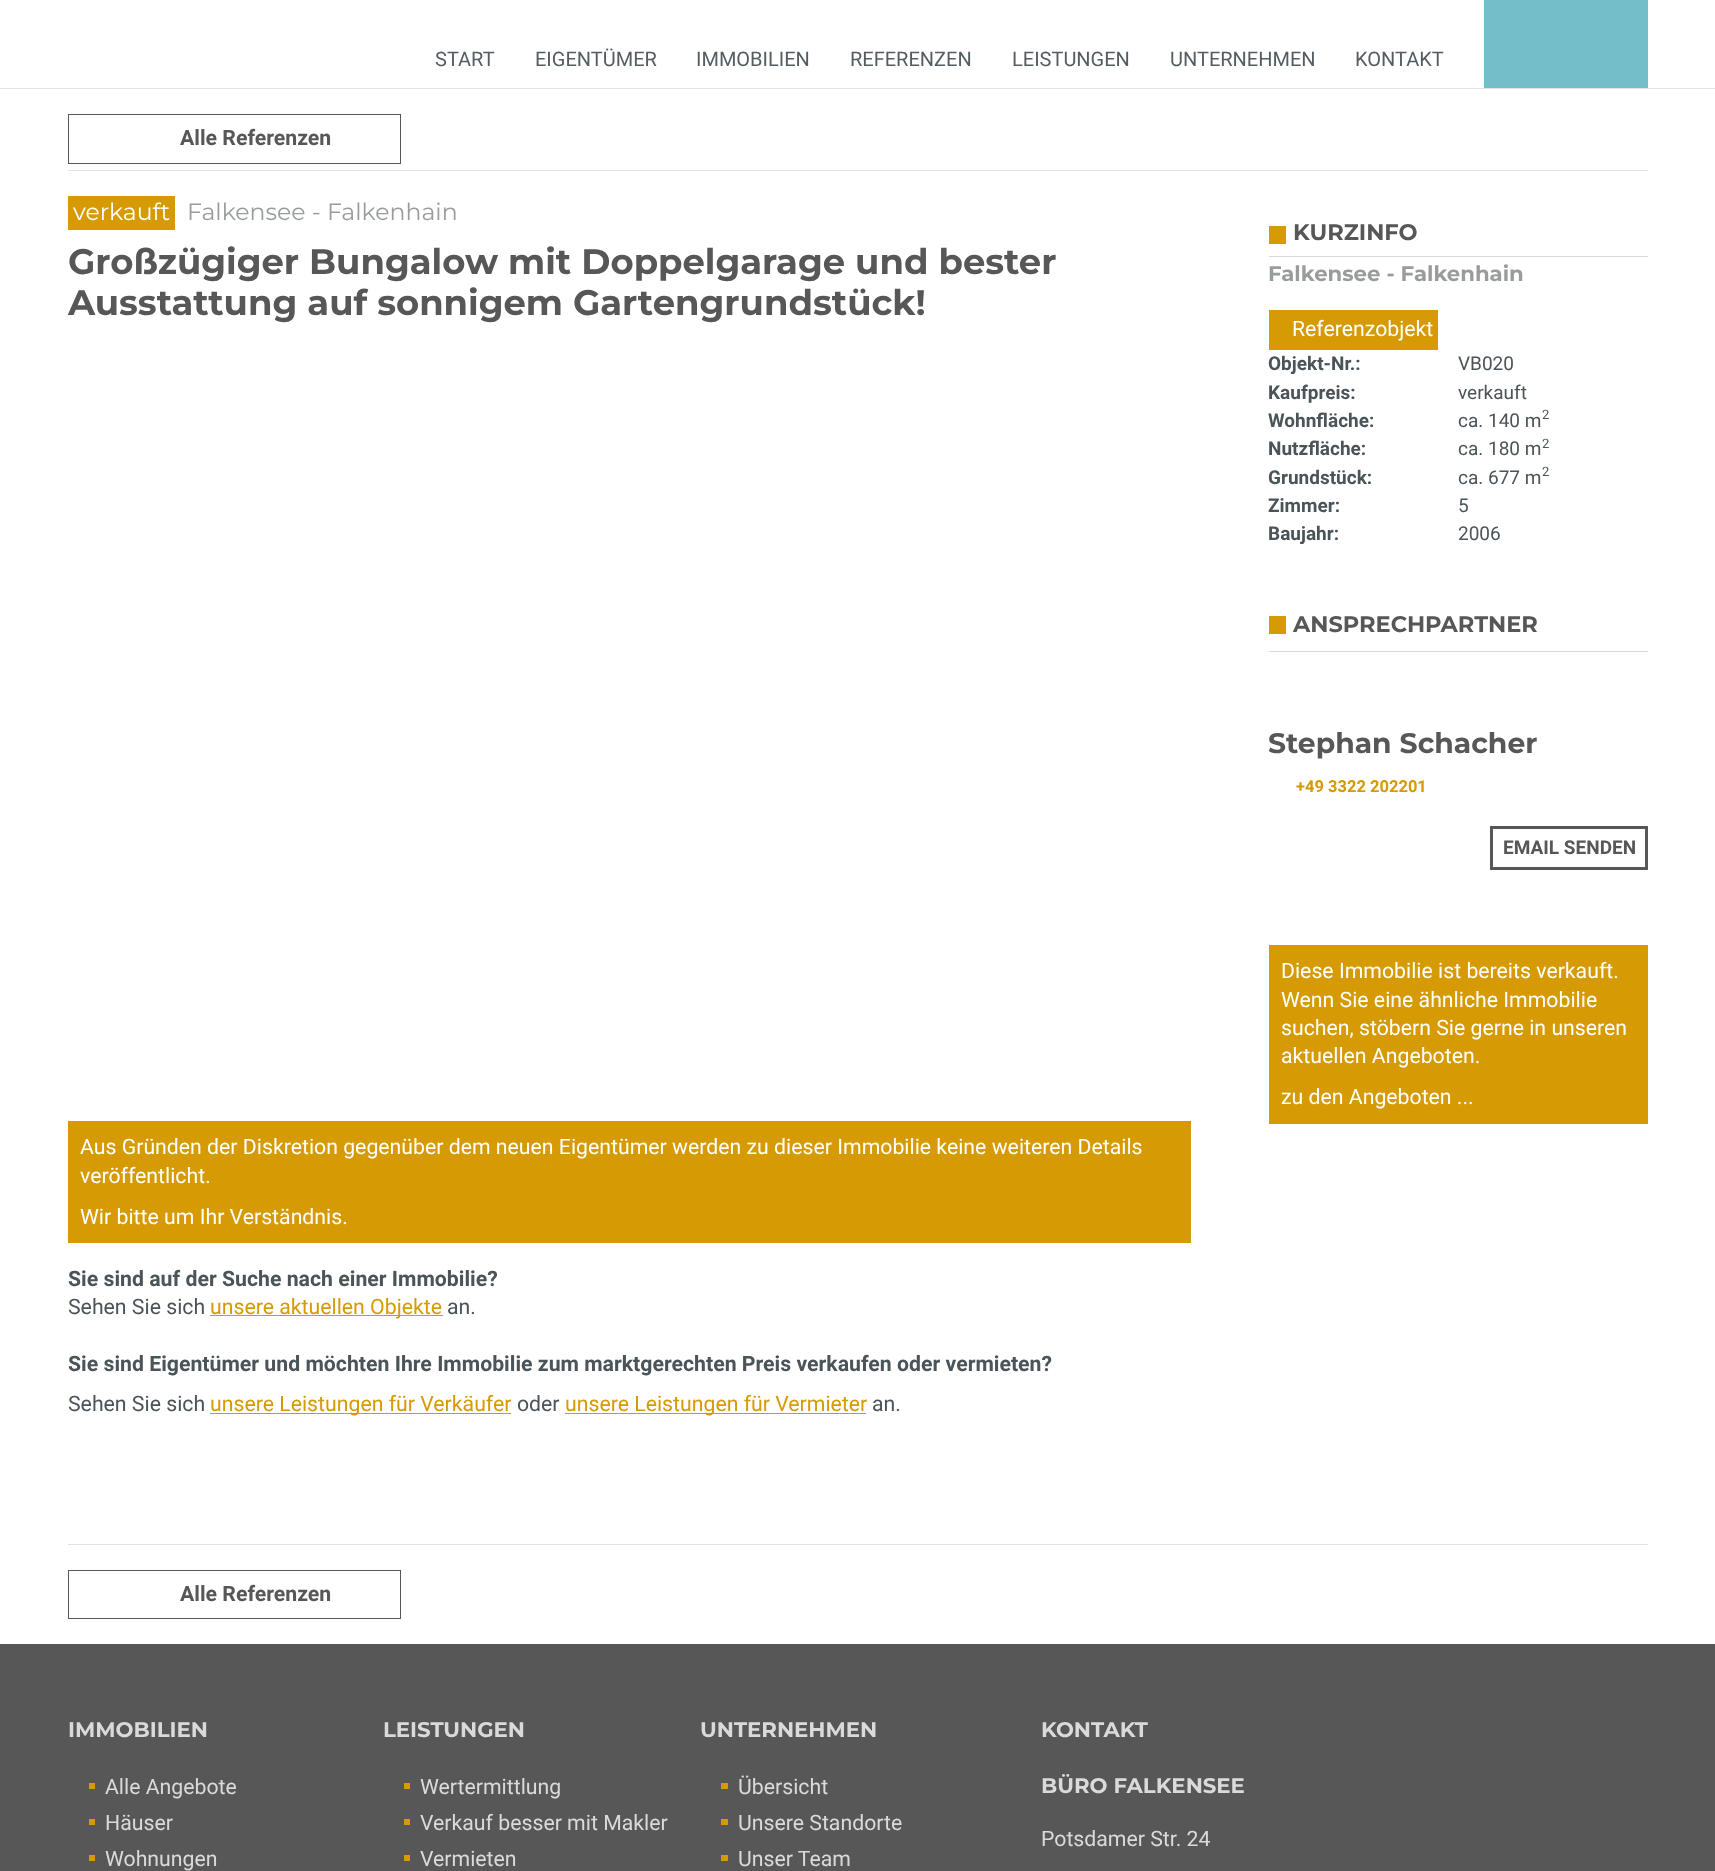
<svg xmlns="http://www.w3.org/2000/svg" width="1715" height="1871">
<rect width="100%" height="100%" fill="#fff"/>
<rect y="88" width="1715" height="1" fill="#dfe5e8"/>
<text x="435" y="66" style="font-family:Roboto;font-size:20px;fill:#535d62">START</text>
<text x="535" y="66" style="font-family:Roboto;font-size:20px;fill:#535d62">EIGENTÜMER</text>
<text x="696" y="66" style="font-family:Roboto;font-size:20px;fill:#535d62">IMMOBILIEN</text>
<text x="850" y="66" style="font-family:Roboto;font-size:20px;fill:#535d62">REFERENZEN</text>
<text x="1012" y="66" style="font-family:Roboto;font-size:20px;fill:#535d62">LEISTUNGEN</text>
<text x="1170" y="66" style="font-family:Roboto;font-size:20px;fill:#535d62">UNTERNEHMEN</text>
<text x="1355" y="66" style="font-family:Roboto;font-size:20px;fill:#535d62">KONTAKT</text>
<rect x="1484" width="164" height="88" fill="#73bec9"/>
<rect x="68" y="170" width="1580" height="1" fill="#e1e2e3"/>
<rect x="68.5" y="114.5" width="332" height="49" fill="none" stroke="#575757"/>
<text x="180" y="145" style="font-family:Roboto;font-size:21.25px;font-weight:bold;fill:#575757">Alle Referenzen</text>
<rect x="68" y="196" width="107" height="34" fill="#d69a04"/>
<text x="73" y="220" style="font-family:Montserrat;font-size:23.6px;fill:#fff">verkauft</text>
<text x="187" y="220" style="font-family:Montserrat;font-size:23.6px;fill:#999c9e">Falkensee - Falkenhain</text>
<text x="68" y="274" style="font-family:Montserrat;font-size:35.4px;font-weight:bold;fill:#575757">Großzügiger Bungalow mit Doppelgarage und bester</text>
<text x="68" y="315" style="font-family:Montserrat;font-size:35.4px;font-weight:bold;fill:#575757">Ausstattung auf sonnigem Gartengrundstück!</text>
<rect x="68" y="1121" width="1123" height="122" fill="#d69a04"/>
<text x="80" y="1154" style="font-family:Roboto;font-size:21.25px;fill:#fff">Aus Gründen der Diskretion gegenüber dem neuen Eigentümer werden zu dieser Immobilie keine weiteren Details</text>
<text x="80" y="1183" style="font-family:Roboto;font-size:21.25px;fill:#fff">veröffentlicht.</text>
<text x="80" y="1224" style="font-family:Roboto;font-size:21.25px;fill:#fff">Wir bitte um Ihr Verständnis.</text>
<text x="68" y="1286" style="font-family:Roboto;font-size:21.25px;font-weight:bold;fill:#4a5459">Sie sind auf der Suche nach einer Immobilie?</text>
<text x="68" y="1314" style="font-family:Roboto;font-size:21.25px;fill:#4a5459">Sehen Sie sich</text>
<rect x="210" y="1315" width="233" height="1" fill="#d69a04"/>
<text x="210" y="1314" style="font-family:Roboto;font-size:21.25px;fill:#d69a04">unsere aktuellen Objekte</text>
<text x="447" y="1314" style="font-family:Roboto;font-size:21.25px;fill:#4a5459">an.</text>
<text x="68" y="1371" style="font-family:Roboto;font-size:21.25px;font-weight:bold;fill:#4a5459">Sie sind Eigentümer und möchten Ihre Immobilie zum marktgerechten Preis verkaufen oder vermieten?</text>
<text x="68" y="1411" style="font-family:Roboto;font-size:21.25px;fill:#4a5459">Sehen Sie sich</text>
<rect x="210" y="1413" width="301" height="1" fill="#d69a04"/>
<text x="210" y="1411" style="font-family:Roboto;font-size:21.25px;fill:#d69a04">unsere Leistungen für Verkäufer</text>
<text x="517" y="1411" style="font-family:Roboto;font-size:21.25px;fill:#4a5459">oder</text>
<rect x="565" y="1413" width="301" height="1" fill="#d69a04"/>
<text x="565" y="1411" style="font-family:Roboto;font-size:21.25px;fill:#d69a04">unsere Leistungen für Vermieter</text>
<text x="872" y="1411" style="font-family:Roboto;font-size:21.25px;fill:#4a5459">an.</text>
<rect x="1269" y="256" width="379" height="1" fill="#d7dadb"/>
<rect x="1269" y="226" width="17" height="18" fill="#d69a04"/>
<text x="1293" y="240" style="font-family:Montserrat;font-size:22.5px;font-weight:bold;fill:#575757">KURZINFO</text>
<text x="1268" y="281" style="font-family:Montserrat;font-size:21.25px;font-weight:bold;fill:#999c9e">Falkensee - Falkenhain</text>
<rect x="1269" y="310" width="169" height="40" fill="#d69a04"/>
<text x="1292" y="336" style="font-family:Roboto;font-size:21.25px;fill:#fff">Referenzobjekt</text>
<text x="1268" y="370" style="font-family:Roboto;font-size:19px;font-weight:bold;fill:#4a5459">Objekt-Nr.:</text>
<text x="1458" y="370" style="font-family:Roboto;font-size:19px;fill:#4a5459">VB020</text>
<text x="1268" y="399" style="font-family:Roboto;font-size:19px;font-weight:bold;fill:#4a5459">Kaufpreis:</text>
<text x="1458" y="399" style="font-family:Roboto;font-size:19px;fill:#4a5459">verkauft</text>
<text x="1268" y="427" style="font-family:Roboto;font-size:19px;font-weight:bold;fill:#4a5459">Wohnfläche:</text>
<text x="1458" y="427" style="font-family:Roboto;font-size:19px;fill:#4a5459">ca. 140 m</text>
<text x="1542" y="419" style="font-family:Roboto;font-size:13px;fill:#4a5459">2</text>
<text x="1268" y="455" style="font-family:Roboto;font-size:19px;font-weight:bold;fill:#4a5459">Nutzfläche:</text>
<text x="1458" y="455" style="font-family:Roboto;font-size:19px;fill:#4a5459">ca. 180 m</text>
<text x="1542" y="448" style="font-family:Roboto;font-size:13px;fill:#4a5459">2</text>
<text x="1268" y="484" style="font-family:Roboto;font-size:19px;font-weight:bold;fill:#4a5459">Grundstück:</text>
<text x="1458" y="484" style="font-family:Roboto;font-size:19px;fill:#4a5459">ca. 677 m</text>
<text x="1542" y="476" style="font-family:Roboto;font-size:13px;fill:#4a5459">2</text>
<text x="1268" y="512" style="font-family:Roboto;font-size:19px;font-weight:bold;fill:#4a5459">Zimmer:</text>
<text x="1458" y="512" style="font-family:Roboto;font-size:19px;fill:#4a5459">5</text>
<text x="1268" y="540" style="font-family:Roboto;font-size:19px;font-weight:bold;fill:#4a5459">Baujahr:</text>
<text x="1458" y="540" style="font-family:Roboto;font-size:19px;fill:#4a5459">2006</text>
<rect x="1269" y="651" width="379" height="1" fill="#d7dadb"/>
<rect x="1269" y="616" width="17" height="18" fill="#d69a04"/>
<text x="1293" y="632" style="font-family:Montserrat;font-size:22.5px;font-weight:bold;fill:#575757">ANSPRECHPARTNER</text>
<text x="1268" y="753" style="font-family:Montserrat;font-size:28.25px;font-weight:bold;fill:#575757">Stephan Schacher</text>
<text x="1296" y="792" style="font-family:Roboto;font-size:16.5px;font-weight:bold;fill:#d69a04">+49 3322 202201</text>
<rect x="1491.5" y="827.5" width="155" height="41" fill="none" stroke="#575757" stroke-width="3"/>
<text x="1503" y="854" style="font-family:Roboto;font-size:19px;font-weight:bold;fill:#575757">EMAIL SENDEN</text>
<rect x="1269" y="945" width="379" height="179" fill="#d69a04"/>
<text x="1281" y="978" style="font-family:Roboto;font-size:21.25px;fill:#fff">Diese Immobilie ist bereits verkauft.</text>
<text x="1281" y="1007" style="font-family:Roboto;font-size:21.25px;fill:#fff">Wenn Sie eine ähnliche Immobilie</text>
<text x="1281" y="1035" style="font-family:Roboto;font-size:21.25px;fill:#fff">suchen, stöbern Sie gerne in unseren</text>
<text x="1281" y="1063" style="font-family:Roboto;font-size:21.25px;fill:#fff">aktuellen Angeboten.</text>
<text x="1281" y="1104" style="font-family:Roboto;font-size:21.25px;fill:#fff">zu den Angeboten ...</text>
<rect x="68" y="1544" width="1580" height="1" fill="#e1e2e3"/>
<rect x="68.5" y="1570.5" width="332" height="48" fill="none" stroke="#575757"/>
<text x="180" y="1601" style="font-family:Roboto;font-size:21.25px;font-weight:bold;fill:#575757">Alle Referenzen</text>
<rect y="1644" width="1715" height="227" fill="#575757"/>
<text x="68" y="1737" style="font-family:Montserrat;font-size:21.25px;font-weight:bold;fill:#dadada">IMMOBILIEN</text>
<rect x="89" y="1783" width="6" height="6" fill="#d69a04"/>
<text x="105" y="1794" style="font-family:Roboto;font-size:21.25px;fill:#dadada">Alle Angebote</text>
<rect x="89" y="1819" width="6" height="6" fill="#d69a04"/>
<text x="105" y="1830" style="font-family:Roboto;font-size:21.25px;fill:#dadada">Häuser</text>
<rect x="89" y="1855" width="6" height="6" fill="#d69a04"/>
<text x="105" y="1866" style="font-family:Roboto;font-size:21.25px;fill:#dadada">Wohnungen</text>
<text x="383" y="1737" style="font-family:Montserrat;font-size:21.25px;font-weight:bold;fill:#dadada">LEISTUNGEN</text>
<rect x="404" y="1783" width="6" height="6" fill="#d69a04"/>
<text x="420" y="1794" style="font-family:Roboto;font-size:21.25px;fill:#dadada">Wertermittlung</text>
<rect x="404" y="1819" width="6" height="6" fill="#d69a04"/>
<text x="420" y="1830" style="font-family:Roboto;font-size:21.25px;fill:#dadada">Verkauf besser mit Makler</text>
<rect x="404" y="1855" width="6" height="6" fill="#d69a04"/>
<text x="420" y="1866" style="font-family:Roboto;font-size:21.25px;fill:#dadada">Vermieten</text>
<text x="700" y="1737" style="font-family:Montserrat;font-size:21.25px;font-weight:bold;fill:#dadada">UNTERNEHMEN</text>
<rect x="721" y="1783" width="7" height="6" fill="#d69a04"/>
<text x="738" y="1794" style="font-family:Roboto;font-size:21.25px;fill:#dadada">Übersicht</text>
<rect x="721" y="1819" width="7" height="6" fill="#d69a04"/>
<text x="738" y="1830" style="font-family:Roboto;font-size:21.25px;fill:#dadada">Unsere Standorte</text>
<rect x="721" y="1855" width="7" height="6" fill="#d69a04"/>
<text x="738" y="1866" style="font-family:Roboto;font-size:21.25px;fill:#dadada">Unser Team</text>
<text x="1041" y="1737" style="font-family:Montserrat;font-size:21.25px;font-weight:bold;fill:#dadada">KONTAKT</text>
<text x="1041" y="1793" style="font-family:Montserrat;font-size:21.25px;font-weight:bold;fill:#dadada">BÜRO FALKENSEE</text>
<text x="1041" y="1846" style="font-family:Roboto;font-size:21.25px;fill:#dadada">Potsdamer Str. 24</text>
</svg>
